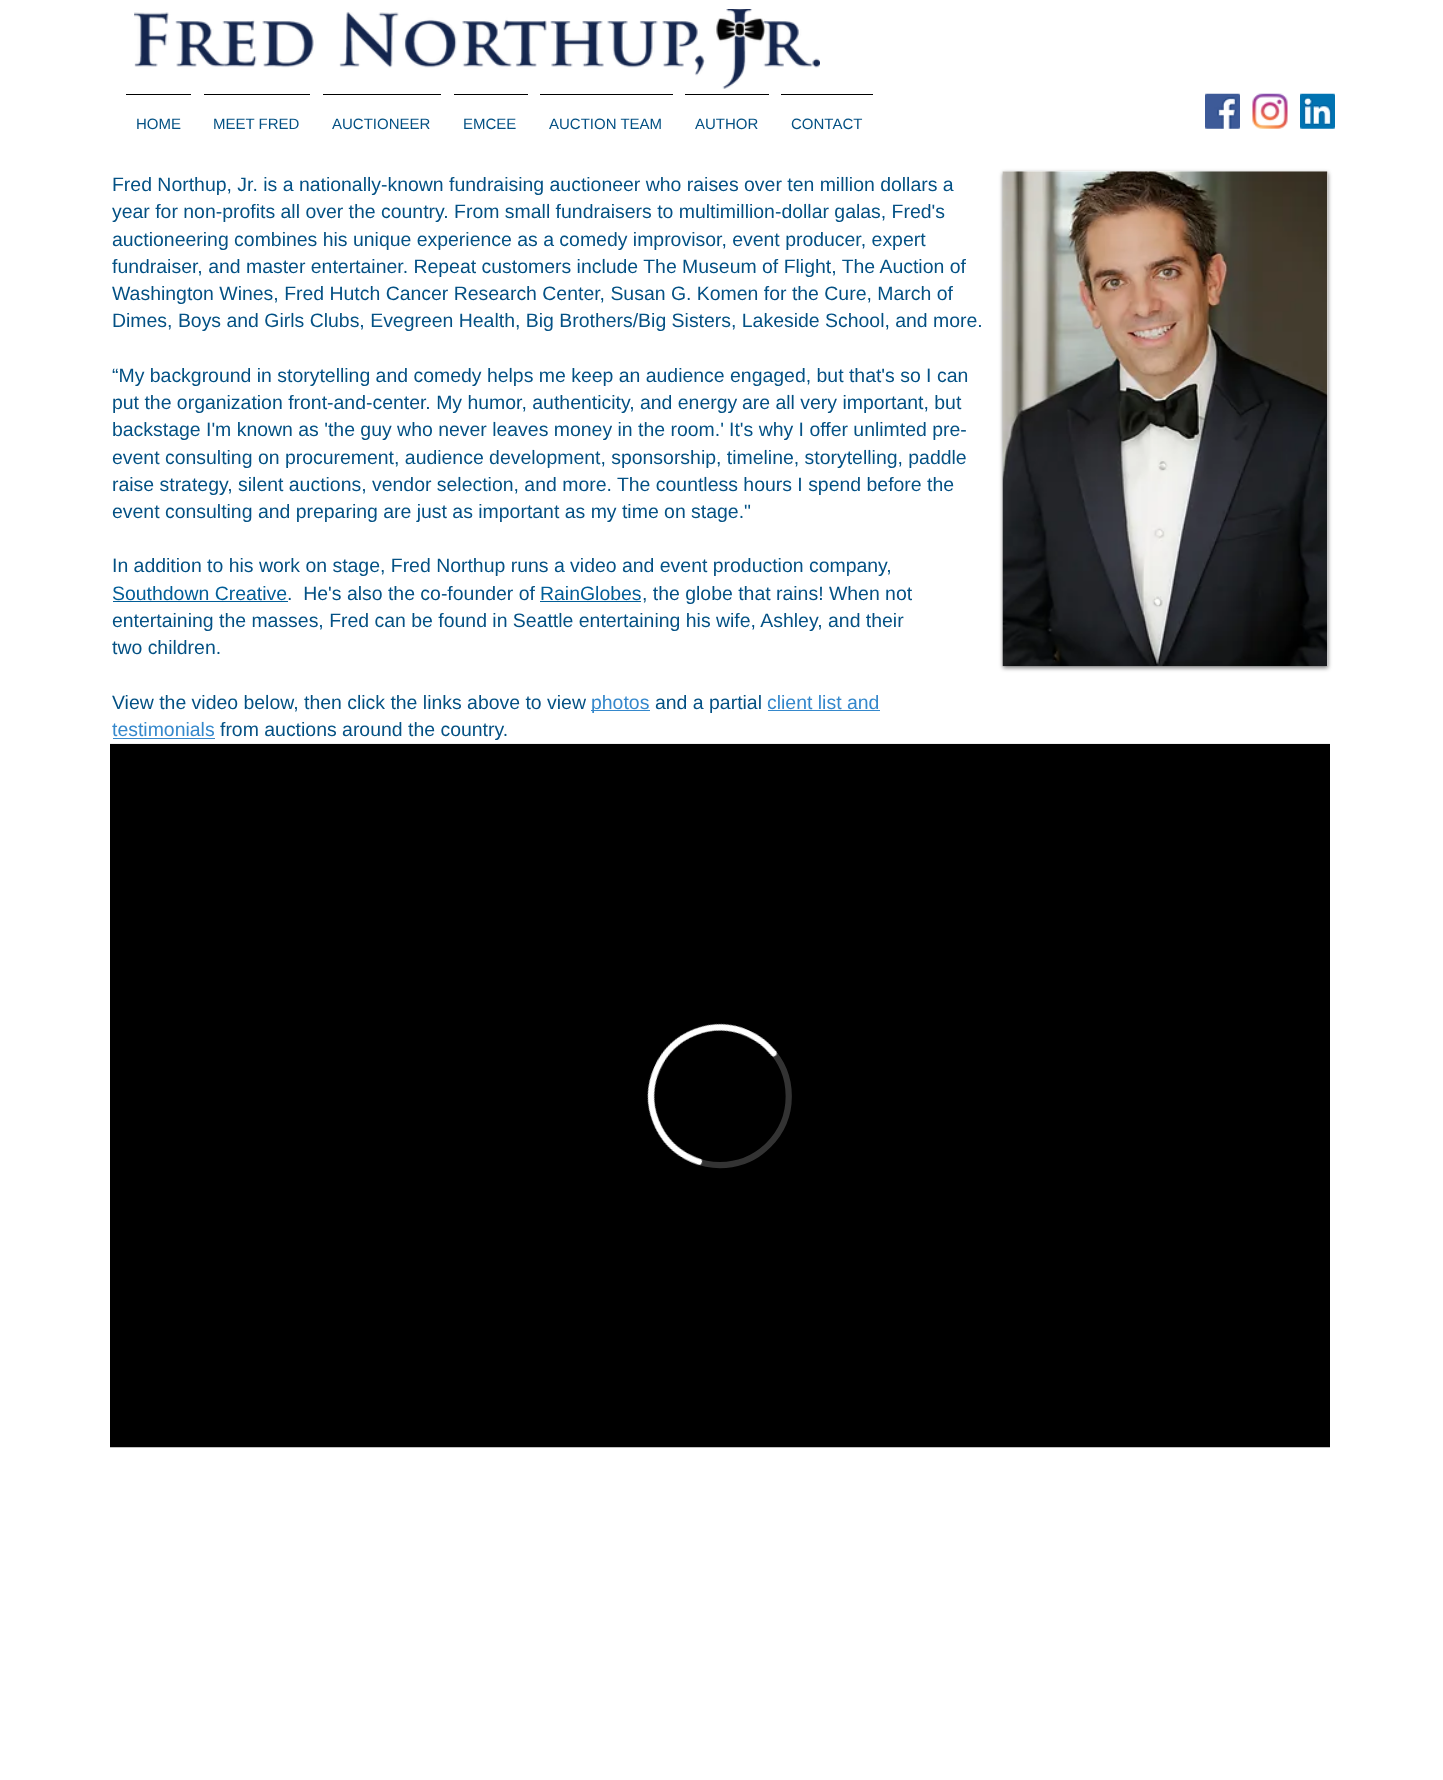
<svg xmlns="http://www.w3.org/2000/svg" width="1443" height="1780">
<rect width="100%" height="100%" fill="#fff"/>
<image x="134" y="9" width="686" height="80" href="media/1.png"/>
<rect x="126" y="94" width="65" height="1" fill="#000"/>
<text x="136" y="129" style="font-family:Liberation Sans;font-size:15px;fill:#045184">HOME</text>
<rect x="204" y="94" width="106" height="1" fill="#000"/>
<text x="213" y="129" style="font-family:Liberation Sans;font-size:15px;fill:#045184">MEET FRED</text>
<rect x="323" y="94" width="118" height="1" fill="#000"/>
<text x="332" y="129" style="font-family:Liberation Sans;font-size:15px;fill:#045184">AUCTIONEER</text>
<rect x="454" y="94" width="74" height="1" fill="#000"/>
<text x="463" y="129" style="font-family:Liberation Sans;font-size:15px;fill:#045184">EMCEE</text>
<rect x="540" y="94" width="133" height="1" fill="#000"/>
<text x="549" y="129" style="font-family:Liberation Sans;font-size:15px;fill:#045184">AUCTION TEAM</text>
<rect x="685" y="94" width="84" height="1" fill="#000"/>
<text x="695" y="129" style="font-family:Liberation Sans;font-size:15px;fill:#045184">AUTHOR</text>
<rect x="781" y="94" width="92" height="1" fill="#000"/>
<text x="791" y="129" style="font-family:Liberation Sans;font-size:15px;fill:#045184">CONTACT</text>
<image x="1205" y="93" width="35" height="36" href="media/2.png"/>
<image x="1252" y="93" width="36" height="36" href="media/3.png"/>
<image x="1300" y="93" width="35" height="36" href="media/4.png"/>
<text x="112" y="191" style="font-family:Liberation Sans;font-size:19.45px;fill:#045184">Fred Northup, Jr. is a nationally-known fundraising auctioneer who raises over ten million dollars a</text>
<text x="112" y="218" style="font-family:Liberation Sans;font-size:19.45px;fill:#045184">year for non-profits all over the country. From small fundraisers to multimillion-dollar galas, Fred's</text>
<text x="112" y="246" style="font-family:Liberation Sans;font-size:19.45px;fill:#045184">auctioneering combines his unique experience as a comedy improvisor, event producer, expert</text>
<text x="112" y="273" style="font-family:Liberation Sans;font-size:19.45px;fill:#045184">fundraiser, and master entertainer. Repeat customers include The Museum of Flight, The Auction of</text>
<text x="112" y="300" style="font-family:Liberation Sans;font-size:19.45px;fill:#045184">Washington Wines, Fred Hutch Cancer Research Center, Susan G. Komen for the Cure, March of</text>
<text x="112" y="327" style="font-family:Liberation Sans;font-size:19.45px;fill:#045184">Dimes, Boys and Girls Clubs, Evegreen Health, Big Brothers/Big Sisters, Lakeside School, and more.</text>
<text x="112" y="382" style="font-family:Liberation Sans;font-size:19.45px;fill:#045184">“My background in storytelling and comedy helps me keep an audience engaged, but that's so I can</text>
<text x="112" y="409" style="font-family:Liberation Sans;font-size:19.45px;fill:#045184">put the organization front-and-center. My humor, authenticity, and energy</text>
<text x="742" y="409" style="font-family:Liberation Sans;font-size:19.45px;fill:#045184">are all very important, but</text>
<text x="112" y="436" style="font-family:Liberation Sans;font-size:19.45px;fill:#045184">backstage I'm known as 'the guy who never leaves money in the room.'</text>
<text x="729" y="436" style="font-family:Liberation Sans;font-size:19.45px;fill:#045184">It's why I offer unlimted pre-</text>
<text x="112" y="464" style="font-family:Liberation Sans;font-size:19.45px;fill:#045184">event consulting on procurement, audience development, sponsorship, timeline, storytelling, paddle</text>
<text x="112" y="491" style="font-family:Liberation Sans;font-size:19.45px;fill:#045184">raise strategy, silent auctions, vendor selection, and more. The countless hours I spend before the</text>
<text x="112" y="518" style="font-family:Liberation Sans;font-size:19.45px;fill:#045184">event consulting and preparing are just as important as my time on stage."</text>
<text x="112" y="572" style="font-family:Liberation Sans;font-size:19.45px;fill:#045184">In addition to his work on stage, Fred Northup runs a video and event production company,</text>
<text x="112" y="600" style="font-family:Liberation Sans;font-size:19.45px;fill:#025e98">Southdown Creative</text>
<rect x="113" y="601" width="175" height="1" fill="#025e98"/>
<text x="287" y="600" style="font-family:Liberation Sans;font-size:19.45px;fill:#045184" xml:space="preserve">.  He's also the co-founder of</text>
<text x="540" y="600" style="font-family:Liberation Sans;font-size:19.45px;fill:#025e98">RainGlobes</text>
<rect x="540" y="601" width="101" height="1" fill="#025e98"/>
<text x="642" y="600" style="font-family:Liberation Sans;font-size:19.45px;fill:#045184">, the globe that rains! When not</text>
<text x="112" y="627" style="font-family:Liberation Sans;font-size:19.45px;fill:#045184">entertaining the masses, Fred can be found in Seattle entertaining his wife, Ashley, and their</text>
<text x="112" y="654" style="font-family:Liberation Sans;font-size:19.45px;fill:#045184">two children.</text>
<text x="112" y="709" style="font-family:Liberation Sans;font-size:19.45px;fill:#045184">View the video below, then click the links above to view</text>
<rect x="591" y="710" width="59" height="1" fill="#3588cc"/>
<text x="591" y="709" style="font-family:Liberation Sans;font-size:19.45px;fill:#3588cc">photos</text>
<text x="655" y="709" style="font-family:Liberation Sans;font-size:19.45px;fill:#045184">and a partial</text>
<text x="767" y="709" style="font-family:Liberation Sans;font-size:19.45px;fill:#3588cc">client list and</text>
<rect x="768" y="710" width="112" height="1" fill="#3588cc"/>
<text x="112" y="736" style="font-family:Liberation Sans;font-size:19.45px;fill:#3588cc">testimonials</text>
<rect x="113" y="738" width="102" height="1" fill="#3588cc"/>
<text x="220" y="736" style="font-family:Liberation Sans;font-size:19.45px;fill:#045184">from auctions around the country.</text>
<rect x="1003" y="173" width="325" height="495" fill="#00000080" filter="blur(2px)"/>
<rect x="1003" y="171" width="325" height="495" fill="#fff"/>
<image x="1002" y="171" width="326" height="496" href="media/5.png"/>
<image x="110" y="743" width="1220" height="705" href="media/6.png"/>
</svg>
